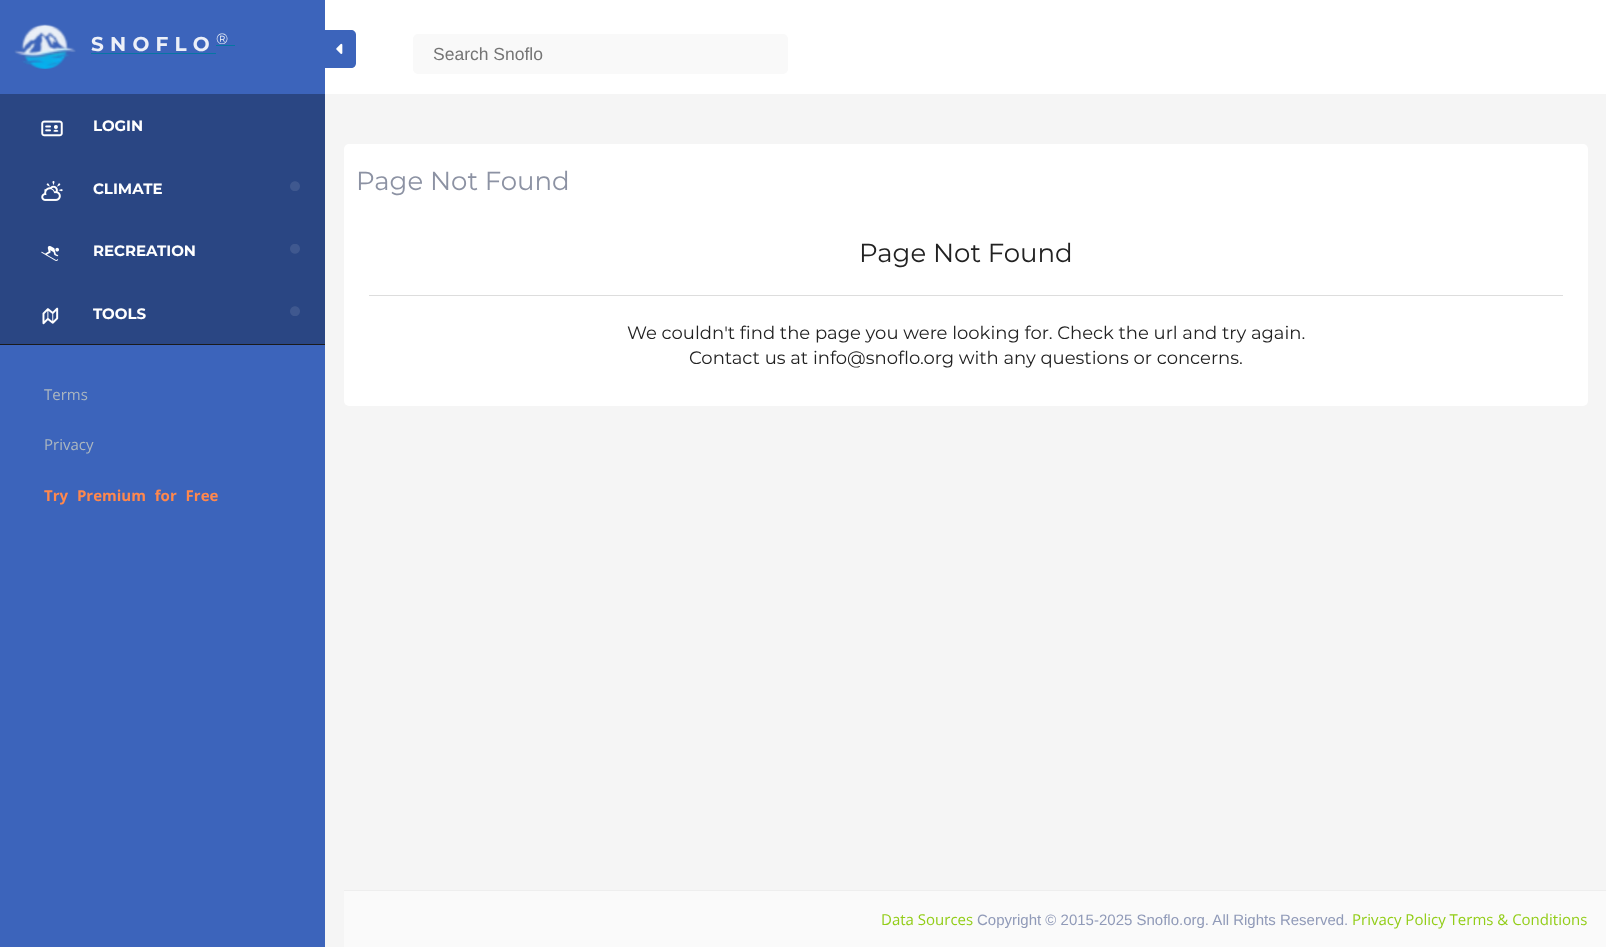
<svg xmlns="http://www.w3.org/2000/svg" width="1606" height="947">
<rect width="100%" height="100%" fill="#3c64bb"/>
<image x="14" y="24" width="62" height="45" href="media/1.png"/>
<text x="91" y="51" style="font-family:Montserrat;font-size:20px;font-weight:bold;letter-spacing:6.25px;fill:#ecf0f8">SNOFLO</text>
<rect x="91" y="53" width="125" height="1" fill="#0676a3"/>
<text x="216" y="44" style="font-family:Montserrat;font-size:15px;letter-spacing:6.25px;fill:#ecf0f8">®</text>
<rect x="216" y="45" width="19" height="1" fill="#0676a3"/>
<rect y="344" width="325" height="1" fill="#1b1b1b"/>
<rect y="94" width="325" height="250" fill="#2a4683"/>
<image x="41" y="120" width="22" height="17" href="media/2.png"/>
<text x="93" y="131" style="font-family:Montserrat;font-size:15px;font-weight:bold;fill:#fff">LOGIN</text>
<image x="41" y="181" width="22" height="20" href="media/3.png"/>
<text x="93" y="194" style="font-family:Montserrat;font-size:15px;font-weight:bold;fill:#fff">CLIMATE</text>
<image x="290" y="181" width="10" height="10" href="media/4.png"/>
<image x="41" y="245" width="18" height="16" href="media/5.png"/>
<text x="93" y="256" style="font-family:Montserrat;font-size:15px;font-weight:bold;fill:#fff">RECREATION</text>
<image x="290" y="244" width="10" height="10" href="media/6.png"/>
<image x="42" y="307" width="17" height="18" href="media/7.png"/>
<text x="93" y="319" style="font-family:Montserrat;font-size:15px;font-weight:bold;fill:#fff">TOOLS</text>
<image x="290" y="306" width="10" height="10" href="media/4.png"/>
<text x="44" y="400" style="font-family:Open Sans;font-size:15px;fill:#acb7c0">Terms</text>
<text x="44" y="450" style="font-family:Open Sans;font-size:15px;fill:#acb7c0">Privacy</text>
<text x="44" y="501" word-spacing="5" style="font-family:Open Sans;font-size:15px;font-weight:bold;fill:#ff884d">Try Premium for Free</text>
<rect x="325" width="1281" height="94" fill="#fff"/>
<path d="M325 30h26c3 0 5 2 5 5v28c0 3-2 5-5 5h-26z" fill="#3c64bb"/>
<image x="336" y="43" width="7" height="11" href="media/8.png"/>
<rect x="325" y="94" width="1281" height="853" fill="#f5f5f5"/>
<rect x="413" y="34" width="375" height="40" rx="5" fill="#f9f9f9"/>
<text x="433" y="60" style="font-family:Liberation Sans;font-size:17.5px;fill:#757575">Search Snoflo</text>
<rect x="344" y="144" width="1244" height="262" rx="5" fill="#fff"/>
<text x="356" y="190" style="font-family:Montserrat;font-size:26px;fill:#8c92a3">Page Not Found</text>
<text x="859" y="262" style="font-family:Montserrat;font-size:26px;fill:#222">Page Not Found</text>
<rect x="369" y="295" width="1194" height="1" fill="#ddd"/>
<text x="627" y="339" style="font-family:Montserrat;font-size:18px;fill:#222">We couldn't find the page you were looking for. Check the url and try again.</text>
<text x="689" y="364" style="font-family:Montserrat;font-size:18px;fill:#222">Contact us at info@snoflo.org with any questions or concerns.</text>
<rect x="344" y="891" width="1262" height="56" fill="#fafafa"/>
<rect x="344" y="890" width="1262" height="1" fill="#eee"/>
<text x="881" y="925" style="font-family:Open Sans;font-size:15px;fill:#92cd18">Data Sources</text>
<text x="977" y="925" style="font-family:Liberation Sans;font-size:15px;fill:#909ab8">Copyright © 2015-2025 Snoflo.org. All Rights Reserved.</text>
<text x="1352" y="925" style="font-family:Open Sans;font-size:15px;fill:#92cd18">Privacy Policy Terms &amp; Conditions</text>
</svg>
